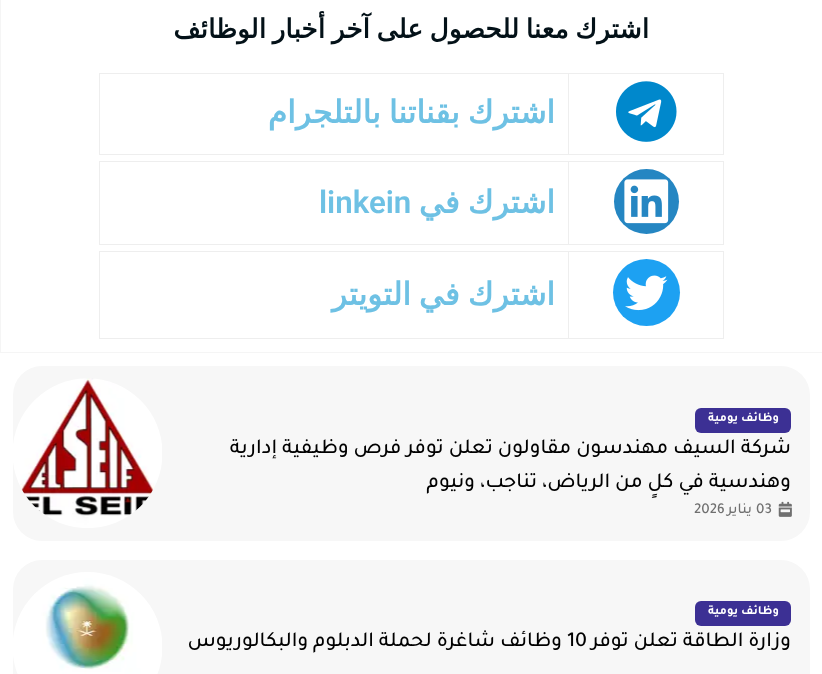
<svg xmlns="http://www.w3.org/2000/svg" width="822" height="674">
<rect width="100%" height="100%" fill="#fff"/>
<rect x="0.5" y="-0.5" width="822" height="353" fill="none" stroke="#f5f5f5"/>
<text x="649" y="38" word-spacing="-1.75" style="font-family:DejaVu Sans;font-size:26.4px;font-weight:bold;direction:rtl;fill:#031118">اشترك معنا للحصول على آخر أخبار الوظائف</text>
<rect x="568.5" y="73.5" width="155" height="81" fill="none" stroke="#eee"/>
<image x="616" y="81" width="61" height="61" href="media/1.png"/>
<rect x="99" y="73" width="469" height="1" fill="#eee"/>
<rect x="99" y="154" width="469" height="1" fill="#eee"/>
<rect x="99" y="73" width="1" height="82" fill="#eee"/>
<text x="555" y="123" word-spacing="-2" style="font-family:DejaVu Sans;font-size:31.25px;font-weight:bold;direction:rtl;fill:#6ec1e4">اشترك بقناتنا بالتلجرام</text>
<rect x="568.5" y="161.5" width="155" height="83" fill="none" stroke="#eee"/>
<circle cx="646.5" cy="201.5" r="32.5" fill="#2586c2"/>
<image x="624" y="179" width="45" height="45" href="media/2.png"/>
<rect x="99" y="161" width="469" height="1" fill="#eee"/>
<rect x="99" y="244" width="469" height="1" fill="#eee"/>
<rect x="99" y="161" width="1" height="84" fill="#eee"/>
<text x="555" y="213" word-spacing="-2" style="font-family:DejaVu Sans;font-size:31.25px;font-weight:bold;direction:rtl;fill:#6ec1e4">اشترك في</text>
<text x="319" y="213" style="font-family:Roboto;font-size:31.25px;font-weight:600;fill:#6ec1e4">linkein</text>
<rect x="568.5" y="251.5" width="155" height="87" fill="none" stroke="#eee"/>
<circle cx="646.5" cy="292.5" r="33.5" fill="#1da1f2"/>
<image x="625" y="275" width="43" height="36" href="media/3.png"/>
<rect x="99" y="251" width="469" height="1" fill="#eee"/>
<rect x="99" y="338" width="469" height="1" fill="#eee"/>
<rect x="99" y="251" width="1" height="88" fill="#eee"/>
<text x="555" y="305" word-spacing="-2" style="font-family:DejaVu Sans;font-size:31.25px;font-weight:bold;direction:rtl;fill:#6ec1e4">اشترك في التويتر</text>
<rect x="13" y="366" width="797" height="175" rx="29" fill="#f7f7f7"/>
<rect x="695" y="408" width="96" height="25" rx="6" fill="#3c3094"/>
<text x="779" y="421" style="font-family:Tajawal;font-size:12.5px;font-weight:bold;direction:rtl;fill:#fff">وظائف يومية</text>
<text x="791" y="453" style="font-family:Tajawal;font-size:21.25px;font-weight:500;direction:rtl;fill:#000">شركة السيف مهندسون مقاولون تعلن توفر فرص وظيفية إدارية</text>
<text x="791" y="487" style="font-family:Tajawal;font-size:21.25px;font-weight:500;direction:rtl;fill:#000">وهندسية في كلٍ من الرياض، تناجب، ونيوم</text>
<image x="778" y="501" width="14" height="16" href="media/4.png"/>
<text x="756" y="513" style="font-family:Tajawal;font-size:15px;font-weight:500;fill:#707070">03</text>
<text x="752" y="513" style="font-family:Tajawal;font-size:15px;font-weight:500;direction:rtl;fill:#707070">يناير</text>
<text x="694" y="513" style="font-family:Tajawal;font-size:15px;font-weight:500;fill:#707070">2026</text>
<image x="13" y="378" width="149" height="150" href="media/5.png"/>
<rect x="13" y="560" width="797" height="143" rx="29" fill="#f7f7f7"/>
<rect x="695" y="601" width="96" height="25" rx="6" fill="#3c3094"/>
<text x="779" y="614" style="font-family:Tajawal;font-size:12.5px;font-weight:bold;direction:rtl;fill:#fff">وظائف يومية</text>
<text x="791" y="646" style="font-family:Tajawal;font-size:21.25px;font-weight:500;direction:rtl;fill:#000">وزارة الطاقة تعلن توفر</text>
<text x="567" y="646" style="font-family:Tajawal;font-size:21.25px;font-weight:500;fill:#000">10</text>
<text x="562" y="646" style="font-family:Tajawal;font-size:21.25px;font-weight:500;direction:rtl;fill:#000">وظائف شاغرة لحملة الدبلوم والبكالوريوس</text>
<image x="13" y="572" width="149" height="102" href="media/6.png"/>
</svg>
